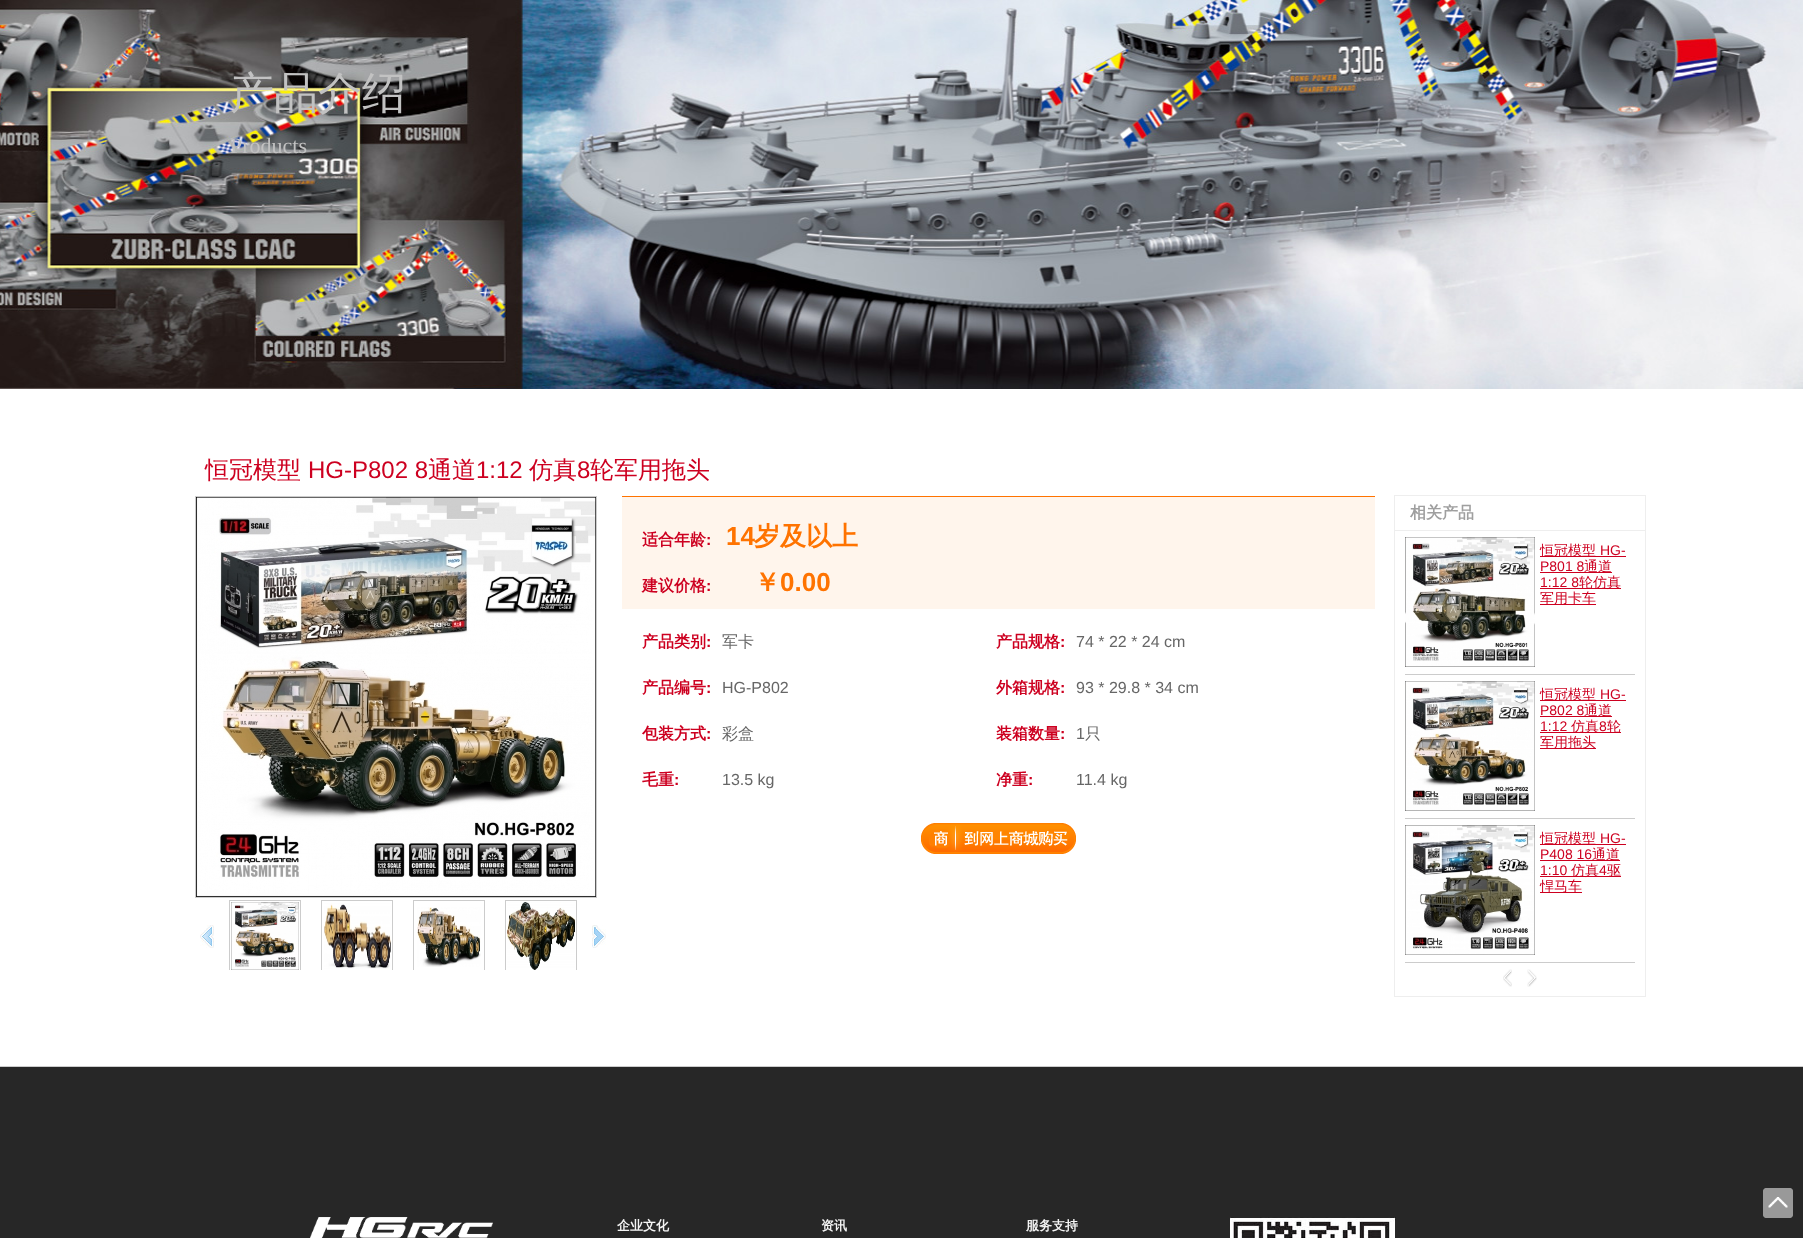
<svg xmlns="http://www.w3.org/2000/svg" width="1803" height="1238">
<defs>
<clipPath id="clip1"><rect x="219" y="898" width="368" height="72"/></clipPath>
</defs>
<rect width="100%" height="100%" fill="#fff"/>
<image x="0" y="0" width="1803" height="389" href="media/1.png"/>
<text x="230" y="108" style="font-family:WenQuanYi Zen Hei;font-size:44px;font-weight:500;fill:#c2c2c2">产品介绍</text>
<text x="230" y="153" style="font-family:Liberation Serif;font-size:22px;fill:#c2c2c2">Products</text>
<text x="205" y="478" style="font-family:WenQuanYi Zen Hei;font-size:24px;font-weight:500;fill:#cd0020">恒冠模型</text>
<text x="308" y="478" style="font-family:Liberation Sans;font-size:24px;fill:#cd0020">HG-P802 8</text>
<text x="428" y="478" style="font-family:WenQuanYi Zen Hei;font-size:24px;font-weight:500;fill:#cd0020">通道</text>
<text x="476" y="478" style="font-family:Liberation Sans;font-size:24px;fill:#cd0020">1:12</text>
<text x="529" y="478" style="font-family:WenQuanYi Zen Hei;font-size:24px;font-weight:500;fill:#cd0020">仿真</text>
<text x="577" y="478" style="font-family:Liberation Sans;font-size:24px;fill:#cd0020">8</text>
<text x="590" y="478" style="font-family:WenQuanYi Zen Hei;font-size:24px;font-weight:500;fill:#cd0020">轮军用拖头</text>
<rect x="195.5" y="496.5" width="401" height="401" fill="none" stroke="#ccc"/>
<image x="196" y="497" width="400" height="400" href="media/2.png"/>
<image x="200" y="925" width="14" height="23" href="media/3.png"/>
<g clip-path="url(#clip1)">
<rect x="229.5" y="900.5" width="71" height="71" fill="none" stroke="#ccc"/>
</g>
<image x="231" y="902" width="68" height="68" href="media/4.png"/>
<g clip-path="url(#clip1)">
<rect x="321.5" y="900.5" width="71" height="71" fill="none" stroke="#ccc"/>
</g>
<image x="324" y="903" width="67" height="66" href="media/5.png"/>
<g clip-path="url(#clip1)">
<rect x="413.5" y="900.5" width="71" height="71" fill="none" stroke="#ccc"/>
</g>
<image x="417" y="907" width="64" height="60" href="media/6.png"/>
<g clip-path="url(#clip1)">
<rect x="505.5" y="900.5" width="71" height="71" fill="none" stroke="#ccc"/>
</g>
<image x="507" y="902" width="68" height="68" href="media/7.png"/>
<image x="592" y="925" width="14" height="23" href="media/8.png"/>
<rect x="622" y="497" width="753" height="112" fill="#fff5ec"/>
<rect x="622" y="496" width="753" height="1" fill="#ff7300"/>
<text x="642" y="545" style="font-family:WenQuanYi Zen Hei;font-size:16px;font-weight:bold;fill:#cd0020">适合年龄</text>
<text x="706" y="545" style="font-family:Liberation Sans;font-size:16px;font-weight:bold;fill:#cd0020">:</text>
<text x="726" y="545" style="font-family:Liberation Sans;font-size:26px;font-weight:bold;fill:#ff7300">14</text>
<text x="754" y="545" style="font-family:WenQuanYi Zen Hei;font-size:26px;font-weight:bold;fill:#ff7300">岁及以上</text>
<text x="642" y="591" style="font-family:WenQuanYi Zen Hei;font-size:16px;font-weight:bold;fill:#cd0020">建议价格</text>
<text x="706" y="591" style="font-family:Liberation Sans;font-size:16px;font-weight:bold;fill:#cd0020">:</text>
<text x="754" y="591" style="font-family:WenQuanYi Zen Hei;font-size:26px;font-weight:bold;fill:#ff7300">￥</text>
<text x="780" y="591" style="font-family:Liberation Sans;font-size:26px;font-weight:bold;fill:#ff7300">0.00</text>
<text x="642" y="647" style="font-family:WenQuanYi Zen Hei;font-size:16px;font-weight:bold;fill:#cd0020">产品类别</text>
<text x="706" y="647" style="font-family:Liberation Sans;font-size:16px;font-weight:bold;fill:#cd0020">:</text>
<text x="722" y="647" style="font-family:WenQuanYi Zen Hei;font-size:16px;font-weight:500;fill:#666">军卡</text>
<text x="996" y="647" style="font-family:WenQuanYi Zen Hei;font-size:16px;font-weight:bold;fill:#cd0020">产品规格</text>
<text x="1060" y="647" style="font-family:Liberation Sans;font-size:16px;font-weight:bold;fill:#cd0020">:</text>
<text x="1076" y="647" style="font-family:Liberation Sans;font-size:16px;fill:#666">74 * 22 * 24 cm</text>
<text x="642" y="693" style="font-family:WenQuanYi Zen Hei;font-size:16px;font-weight:bold;fill:#cd0020">产品编号</text>
<text x="706" y="693" style="font-family:Liberation Sans;font-size:16px;font-weight:bold;fill:#cd0020">:</text>
<text x="722" y="693" style="font-family:Liberation Sans;font-size:16px;fill:#666">HG-P802</text>
<text x="996" y="693" style="font-family:WenQuanYi Zen Hei;font-size:16px;font-weight:bold;fill:#cd0020">外箱规格</text>
<text x="1060" y="693" style="font-family:Liberation Sans;font-size:16px;font-weight:bold;fill:#cd0020">:</text>
<text x="1076" y="693" style="font-family:Liberation Sans;font-size:16px;fill:#666">93 * 29.8 * 34 cm</text>
<text x="642" y="739" style="font-family:WenQuanYi Zen Hei;font-size:16px;font-weight:bold;fill:#cd0020">包装方式</text>
<text x="706" y="739" style="font-family:Liberation Sans;font-size:16px;font-weight:bold;fill:#cd0020">:</text>
<text x="722" y="739" style="font-family:WenQuanYi Zen Hei;font-size:16px;font-weight:500;fill:#666">彩盒</text>
<text x="996" y="739" style="font-family:WenQuanYi Zen Hei;font-size:16px;font-weight:bold;fill:#cd0020">装箱数量</text>
<text x="1060" y="739" style="font-family:Liberation Sans;font-size:16px;font-weight:bold;fill:#cd0020">:</text>
<text x="1076" y="739" style="font-family:Liberation Sans;font-size:16px;fill:#666">1</text>
<text x="1085" y="739" style="font-family:WenQuanYi Zen Hei;font-size:16px;font-weight:500;fill:#666">只</text>
<text x="642" y="785" style="font-family:WenQuanYi Zen Hei;font-size:16px;font-weight:bold;fill:#cd0020">毛重</text>
<text x="674" y="785" style="font-family:Liberation Sans;font-size:16px;font-weight:bold;fill:#cd0020">:</text>
<text x="722" y="785" style="font-family:Liberation Sans;font-size:16px;fill:#666">13.5 kg</text>
<text x="996" y="785" style="font-family:WenQuanYi Zen Hei;font-size:16px;font-weight:bold;fill:#cd0020">净重</text>
<text x="1028" y="785" style="font-family:Liberation Sans;font-size:16px;font-weight:bold;fill:#cd0020">:</text>
<text x="1076" y="785" style="font-family:Liberation Sans;font-size:16px;fill:#666">11.4 kg</text>
<image x="921" y="823" width="155" height="31" href="media/9.png"/>
<rect x="1394.5" y="495.5" width="251" height="501" fill="none" stroke="#eee"/>
<rect x="1395" y="530" width="250" height="1" fill="#eee"/>
<text x="1410" y="518" style="font-family:WenQuanYi Zen Hei;font-size:16px;font-weight:bold;fill:#9f9f9f">相关产品</text>
<rect x="1405" y="674" width="230" height="1" fill="#ccc"/>
<image x="1405" y="537" width="130" height="130" href="media/10.png"/>
<rect x="1540" y="556" width="86" height="1" fill="#cd0020"/>
<text x="1540" y="555" style="font-family:WenQuanYi Zen Hei;font-size:14px;font-weight:500;fill:#cd0020">恒冠模型</text>
<text x="1600" y="555" style="font-family:Liberation Sans;font-size:14px;fill:#cd0020">HG-</text>
<text x="1540" y="571" style="font-family:Liberation Sans;font-size:14px;fill:#cd0020">P801 8</text>
<rect x="1540" y="572" width="72" height="1" fill="#cd0020"/>
<text x="1584" y="571" style="font-family:WenQuanYi Zen Hei;font-size:14px;font-weight:500;fill:#cd0020">通道</text>
<text x="1540" y="587" style="font-family:Liberation Sans;font-size:14px;fill:#cd0020">1:12 8</text>
<rect x="1540" y="588" width="81" height="1" fill="#cd0020"/>
<text x="1579" y="587" style="font-family:WenQuanYi Zen Hei;font-size:14px;font-weight:500;fill:#cd0020">轮仿真</text>
<rect x="1540" y="604" width="56" height="1" fill="#cd0020"/>
<text x="1540" y="603" style="font-family:WenQuanYi Zen Hei;font-size:14px;font-weight:500;fill:#cd0020">军用卡车</text>
<rect x="1405" y="818" width="230" height="1" fill="#ccc"/>
<image x="1405" y="681" width="130" height="130" href="media/11.png"/>
<rect x="1540" y="700" width="86" height="1" fill="#cd0020"/>
<text x="1540" y="699" style="font-family:WenQuanYi Zen Hei;font-size:14px;font-weight:500;fill:#cd0020">恒冠模型</text>
<text x="1600" y="699" style="font-family:Liberation Sans;font-size:14px;fill:#cd0020">HG-</text>
<text x="1540" y="715" style="font-family:Liberation Sans;font-size:14px;fill:#cd0020">P802 8</text>
<rect x="1540" y="716" width="72" height="1" fill="#cd0020"/>
<text x="1584" y="715" style="font-family:WenQuanYi Zen Hei;font-size:14px;font-weight:500;fill:#cd0020">通道</text>
<text x="1540" y="731" style="font-family:Liberation Sans;font-size:14px;fill:#cd0020">1:12</text>
<rect x="1540" y="732" width="81" height="1" fill="#cd0020"/>
<text x="1571" y="731" style="font-family:WenQuanYi Zen Hei;font-size:14px;font-weight:500;fill:#cd0020">仿真</text>
<text x="1599" y="731" style="font-family:Liberation Sans;font-size:14px;fill:#cd0020">8</text>
<text x="1607" y="731" style="font-family:WenQuanYi Zen Hei;font-size:14px;font-weight:500;fill:#cd0020">轮</text>
<rect x="1540" y="748" width="56" height="1" fill="#cd0020"/>
<text x="1540" y="747" style="font-family:WenQuanYi Zen Hei;font-size:14px;font-weight:500;fill:#cd0020">军用拖头</text>
<rect x="1405" y="962" width="230" height="1" fill="#ccc"/>
<image x="1405" y="825" width="130" height="130" href="media/12.png"/>
<rect x="1540" y="844" width="86" height="1" fill="#cd0020"/>
<text x="1540" y="843" style="font-family:WenQuanYi Zen Hei;font-size:14px;font-weight:500;fill:#cd0020">恒冠模型</text>
<text x="1600" y="843" style="font-family:Liberation Sans;font-size:14px;fill:#cd0020">HG-</text>
<text x="1540" y="859" style="font-family:Liberation Sans;font-size:14px;fill:#cd0020">P408 16</text>
<rect x="1540" y="860" width="80" height="1" fill="#cd0020"/>
<text x="1592" y="859" style="font-family:WenQuanYi Zen Hei;font-size:14px;font-weight:500;fill:#cd0020">通道</text>
<text x="1540" y="875" style="font-family:Liberation Sans;font-size:14px;fill:#cd0020">1:10</text>
<rect x="1540" y="876" width="81" height="1" fill="#cd0020"/>
<text x="1571" y="875" style="font-family:WenQuanYi Zen Hei;font-size:14px;font-weight:500;fill:#cd0020">仿真</text>
<text x="1599" y="875" style="font-family:Liberation Sans;font-size:14px;fill:#cd0020">4</text>
<text x="1607" y="875" style="font-family:WenQuanYi Zen Hei;font-size:14px;font-weight:500;fill:#cd0020">驱</text>
<rect x="1540" y="892" width="42" height="1" fill="#cd0020"/>
<text x="1540" y="891" style="font-family:WenQuanYi Zen Hei;font-size:14px;font-weight:500;fill:#cd0020">悍马车</text>
<image x="1503" y="969" width="9" height="18" href="media/13.png"/>
<image x="1527" y="969" width="10" height="18" href="media/14.png"/>
<rect y="1067" width="1803" height="171" fill="#272727"/>
<image x="1763" y="1188" width="30" height="30" href="media/15.png"/>
<rect y="1066" width="1803" height="1" fill="#ccc"/>
<image x="310" y="1217" width="183" height="21" href="media/16.png"/>
<text x="617" y="1230" style="font-family:WenQuanYi Zen Hei;font-size:13px;font-weight:bold;fill:#f5f5f5">企业文化</text>
<text x="821" y="1230" style="font-family:WenQuanYi Zen Hei;font-size:13px;font-weight:bold;fill:#f5f5f5">资讯</text>
<text x="1026" y="1230" style="font-family:WenQuanYi Zen Hei;font-size:13px;font-weight:bold;fill:#f5f5f5">服务支持</text>
<image x="1230" y="1217" width="166" height="21" href="media/17.png"/>
</svg>
